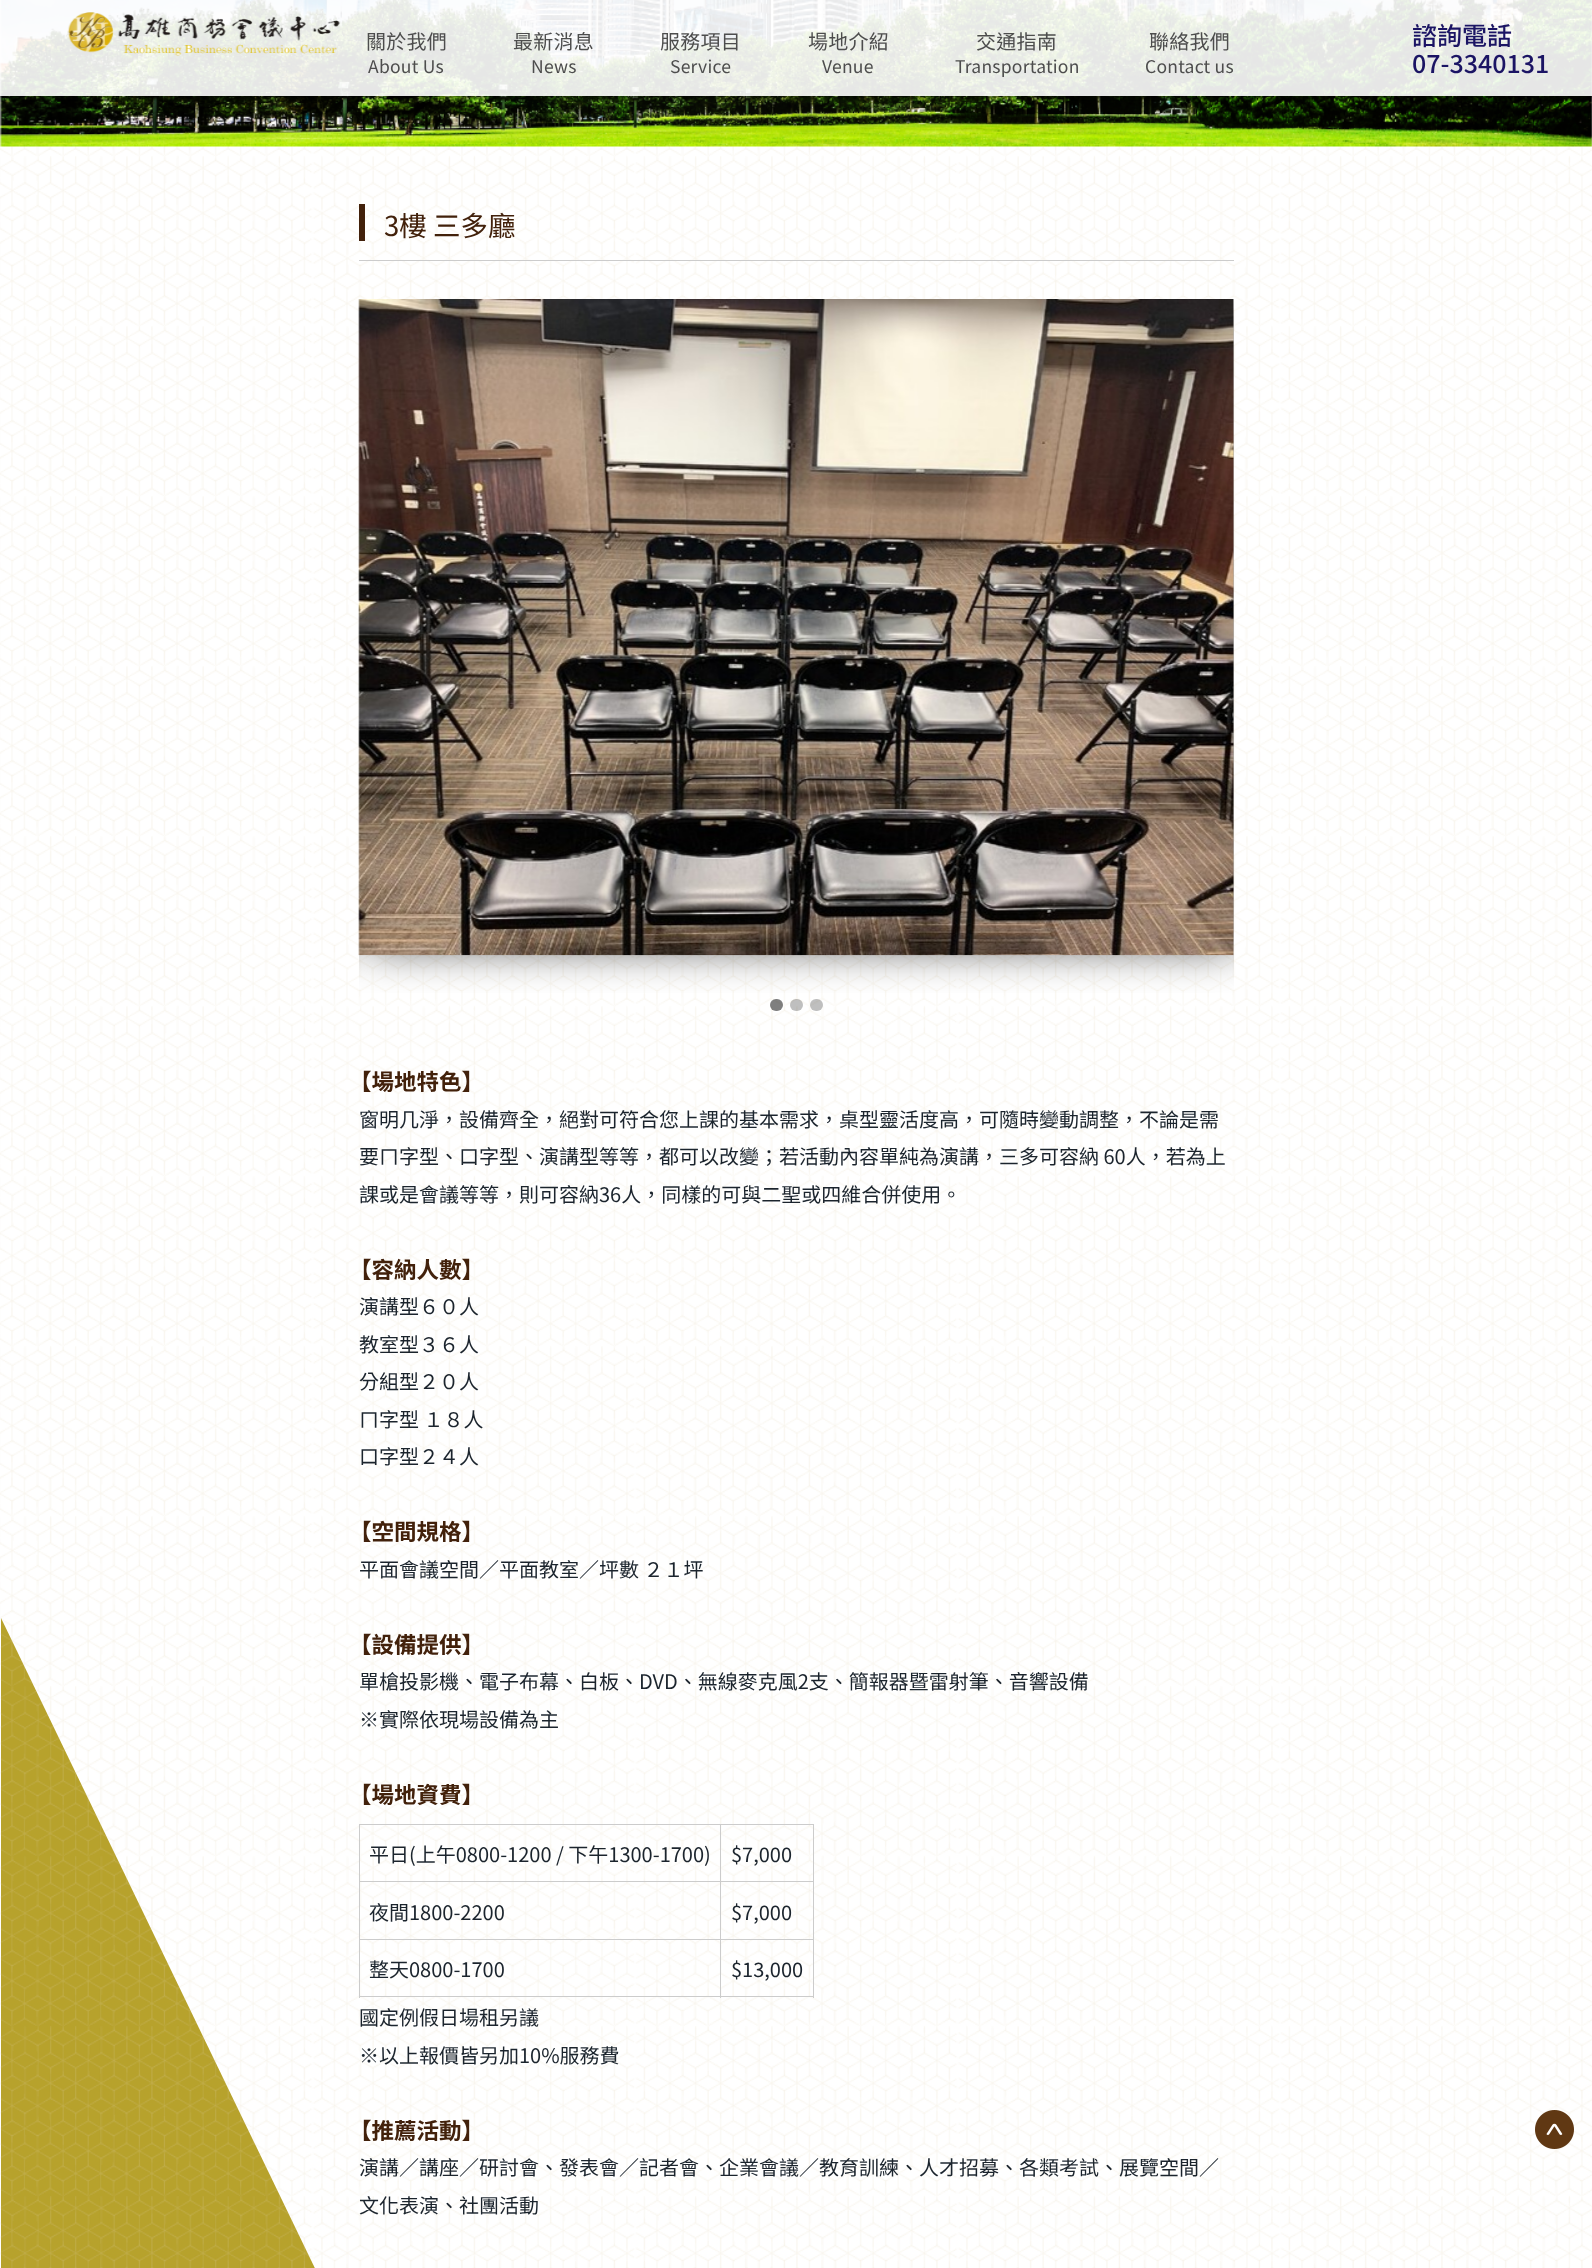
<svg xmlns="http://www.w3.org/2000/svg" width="1592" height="2268">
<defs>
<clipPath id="clip1"><rect x="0" y="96" width="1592" height="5"/></clipPath>
<clipPath id="clip2"><rect x="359" y="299" width="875" height="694"/></clipPath>
</defs>
<rect width="100%" height="100%" fill="#fff"/>
<path d="M478 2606h-477v-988z" fill="#b7a22c"/>
<image x="0" y="0" width="1592" height="2268" href="media/1.png"/>
<image x="0" y="0" width="1592" height="147" href="media/3.png"/>
<g clip-path="url(#clip1)">
<rect width="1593" height="96" fill="#000" filter="blur(2.5px)"/>
</g>
<rect width="1592" height="96" fill="#ffffffe6"/>
<text x="366" y="49" style="font-family:Noto Sans TC;font-size:20px;letter-spacing:0.25px;fill:#4d4d4d">關於我們</text>
<text x="368" y="73" style="font-family:Noto Sans TC;font-size:17.5px;letter-spacing:0.25px;fill:#4d4d4d">About Us</text>
<text x="513" y="49" style="font-family:Noto Sans TC;font-size:20px;letter-spacing:0.25px;fill:#4d4d4d">最新消息</text>
<text x="531" y="73" style="font-family:Noto Sans TC;font-size:17.5px;letter-spacing:0.25px;fill:#4d4d4d">News</text>
<text x="660" y="49" style="font-family:Noto Sans TC;font-size:20px;letter-spacing:0.25px;fill:#4d4d4d">服務項目</text>
<text x="670" y="73" style="font-family:Noto Sans TC;font-size:17.5px;letter-spacing:0.25px;fill:#4d4d4d">Service</text>
<text x="808" y="49" style="font-family:Noto Sans TC;font-size:20px;letter-spacing:0.25px;fill:#4d4d4d">場地介紹</text>
<text x="822" y="73" style="font-family:Noto Sans TC;font-size:17.5px;letter-spacing:0.25px;fill:#4d4d4d">Venue</text>
<text x="976" y="49" style="font-family:Noto Sans TC;font-size:20px;letter-spacing:0.25px;fill:#4d4d4d">交通指南</text>
<text x="955" y="73" style="font-family:Noto Sans TC;font-size:17.5px;letter-spacing:0.25px;fill:#4d4d4d">Transportation</text>
<text x="1149" y="49" style="font-family:Noto Sans TC;font-size:20px;letter-spacing:0.25px;fill:#4d4d4d">聯絡我們</text>
<text x="1145" y="73" style="font-family:Noto Sans TC;font-size:17.5px;letter-spacing:0.25px;fill:#4d4d4d">Contact us</text>
<image x="67" y="12" width="273" height="44" href="media/2.png"/>
<text x="1412" y="45" style="font-family:Noto Sans TC;font-size:25px;font-weight:500;fill:#1b1464">諮詢電話</text>
<text x="1412" y="73" style="font-family:Noto Sans TC;font-size:25px;font-weight:500;fill:#1b1464">07-3340131</text>
<rect x="359" y="260" width="875" height="1" fill="#ccc"/>
<rect x="359" y="204" width="6" height="37" fill="#42210b"/>
<text x="384" y="236" style="font-family:Noto Sans TC;font-size:27.5px;fill:#42210b">3樓 三多廳</text>
<g clip-path="url(#clip2)">
<rect x="-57" y="310" width="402" height="644" fill="#00000080" filter="blur(19px)"/>
</g>
<rect x="770" y="999" width="13" height="12" rx="6" fill="#00000080"/>
<g clip-path="url(#clip2)">
<rect x="370" y="310" width="863" height="644" fill="#00000080" filter="blur(19px)"/>
</g>
<image x="358" y="299" width="876" height="657" href="media/4.png"/>
<g clip-path="url(#clip2)">
<rect x="1258" y="310" width="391" height="644" fill="#00000080" filter="blur(19px)"/>
</g>
<rect x="790" y="999" width="13" height="12" rx="6" fill="#00000040"/>
<rect x="810" y="999" width="13" height="12" rx="6" fill="#00000040"/>
<text x="349" y="1090" style="font-family:Noto Sans TC;font-size:22.5px;font-weight:bold;fill:#42210b">【場地特色】</text>
<text x="359" y="1127" style="font-family:Noto Sans TC;font-size:20px;fill:#1b242d">窗明几淨，設備齊全，絕對可符合您上課的基本需求，桌型靈活度高，可隨時變動調整，不論是需</text>
<text x="359" y="1164" style="font-family:Noto Sans TC;font-size:20px;fill:#1b242d">要ㄇ字型、口字型、演講型等等，都可以改變；若活動內容單純為演講，三多可容納 60人，若為上</text>
<text x="359" y="1202" style="font-family:Noto Sans TC;font-size:20px;fill:#1b242d">課或是會議等等，則可容納36人，同樣的可與二聖或四維合併使用。</text>
<text x="349" y="1278" style="font-family:Noto Sans TC;font-size:22.5px;font-weight:bold;fill:#42210b">【容納人數】</text>
<text x="359" y="1314" style="font-family:Noto Sans TC;font-size:20px;fill:#1b242d">演講型６０人</text>
<text x="359" y="1352" style="font-family:Noto Sans TC;font-size:20px;fill:#1b242d">教室型３６人</text>
<text x="359" y="1389" style="font-family:Noto Sans TC;font-size:20px;fill:#1b242d">分組型２０人</text>
<text x="359" y="1427" style="font-family:Noto Sans TC;font-size:20px;fill:#1b242d">ㄇ字型 １８人</text>
<text x="359" y="1464" style="font-family:Noto Sans TC;font-size:20px;fill:#1b242d">口字型２４人</text>
<text x="349" y="1540" style="font-family:Noto Sans TC;font-size:22.5px;font-weight:bold;fill:#42210b">【空間規格】</text>
<text x="359" y="1577" style="font-family:Noto Sans TC;font-size:20px;fill:#1b242d">平面會議空間／平面教室／坪數 ２１坪</text>
<text x="349" y="1653" style="font-family:Noto Sans TC;font-size:22.5px;font-weight:bold;fill:#42210b">【設備提供】</text>
<text x="359" y="1689" style="font-family:Noto Sans TC;font-size:20px;fill:#1b242d">單槍投影機、電子布幕、白板、DVD、無線麥克風2支、簡報器暨雷射筆、音響設備</text>
<text x="359" y="1727" style="font-family:Noto Sans TC;font-size:20px;fill:#1b242d">※實際依現場設備為主</text>
<text x="349" y="1803" style="font-family:Noto Sans TC;font-size:22.5px;font-weight:bold;fill:#42210b">【場地資費】</text>
<rect x="720" y="1824" width="94" height="1" fill="#ccc"/>
<rect x="720" y="1881" width="94" height="1" fill="#ccc"/>
<rect x="720" y="1939" width="94" height="1" fill="#ccc"/>
<rect x="813" y="1939" width="1" height="59" fill="#ccc"/>
<rect x="720" y="1996" width="94" height="1" fill="#ccc"/>
<rect x="720" y="1939" width="1" height="59" fill="#ccc"/>
<rect x="359" y="1939" width="362" height="1" fill="#ccc"/>
<rect x="720" y="1881" width="1" height="59" fill="#ccc"/>
<rect x="359" y="1881" width="362" height="1" fill="#ccc"/>
<rect x="720" y="1824" width="1" height="59" fill="#ccc"/>
<rect x="359" y="1824" width="362" height="1" fill="#ccc"/>
<rect x="359" y="1996" width="362" height="1" fill="#ccc"/>
<rect x="359" y="1939" width="1" height="59" fill="#ccc"/>
<rect x="359" y="1881" width="1" height="59" fill="#ccc"/>
<rect x="359" y="1824" width="1" height="59" fill="#ccc"/>
<text x="369" y="1862" style="font-family:Noto Sans TC;font-size:20px;fill:#1b242d">平日(上午0800-1200 / 下午1300-1700)</text>
<rect x="813" y="1881" width="1" height="59" fill="#ccc"/>
<rect x="813" y="1824" width="1" height="59" fill="#ccc"/>
<text x="731" y="1862" style="font-family:Noto Sans TC;font-size:20px;fill:#1b242d">$7,000</text>
<text x="369" y="1920" style="font-family:Noto Sans TC;font-size:20px;fill:#1b242d">夜間1800-2200</text>
<text x="731" y="1920" style="font-family:Noto Sans TC;font-size:20px;fill:#1b242d">$7,000</text>
<text x="369" y="1977" style="font-family:Noto Sans TC;font-size:20px;fill:#1b242d">整天0800-1700</text>
<text x="731" y="1977" style="font-family:Noto Sans TC;font-size:20px;fill:#1b242d">$13,000</text>
<text x="359" y="2025" style="font-family:Noto Sans TC;font-size:20px;fill:#1b242d">國定例假日場租另議</text>
<text x="359" y="2063" style="font-family:Noto Sans TC;font-size:20px;fill:#1b242d">※以上報價皆另加10%服務費</text>
<text x="349" y="2139" style="font-family:Noto Sans TC;font-size:22.5px;font-weight:bold;fill:#42210b">【推薦活動】</text>
<text x="359" y="2175" style="font-family:Noto Sans TC;font-size:20px;fill:#1b242d">演講／講座／研討會、發表會／記者會、企業會議／教育訓練、人才招募、各類考試、展覽空間／</text>
<text x="359" y="2213" style="font-family:Noto Sans TC;font-size:20px;fill:#1b242d">文化表演、社團活動</text>
<image x="1535" y="2110" width="39" height="39" href="media/5.png"/>
</svg>
